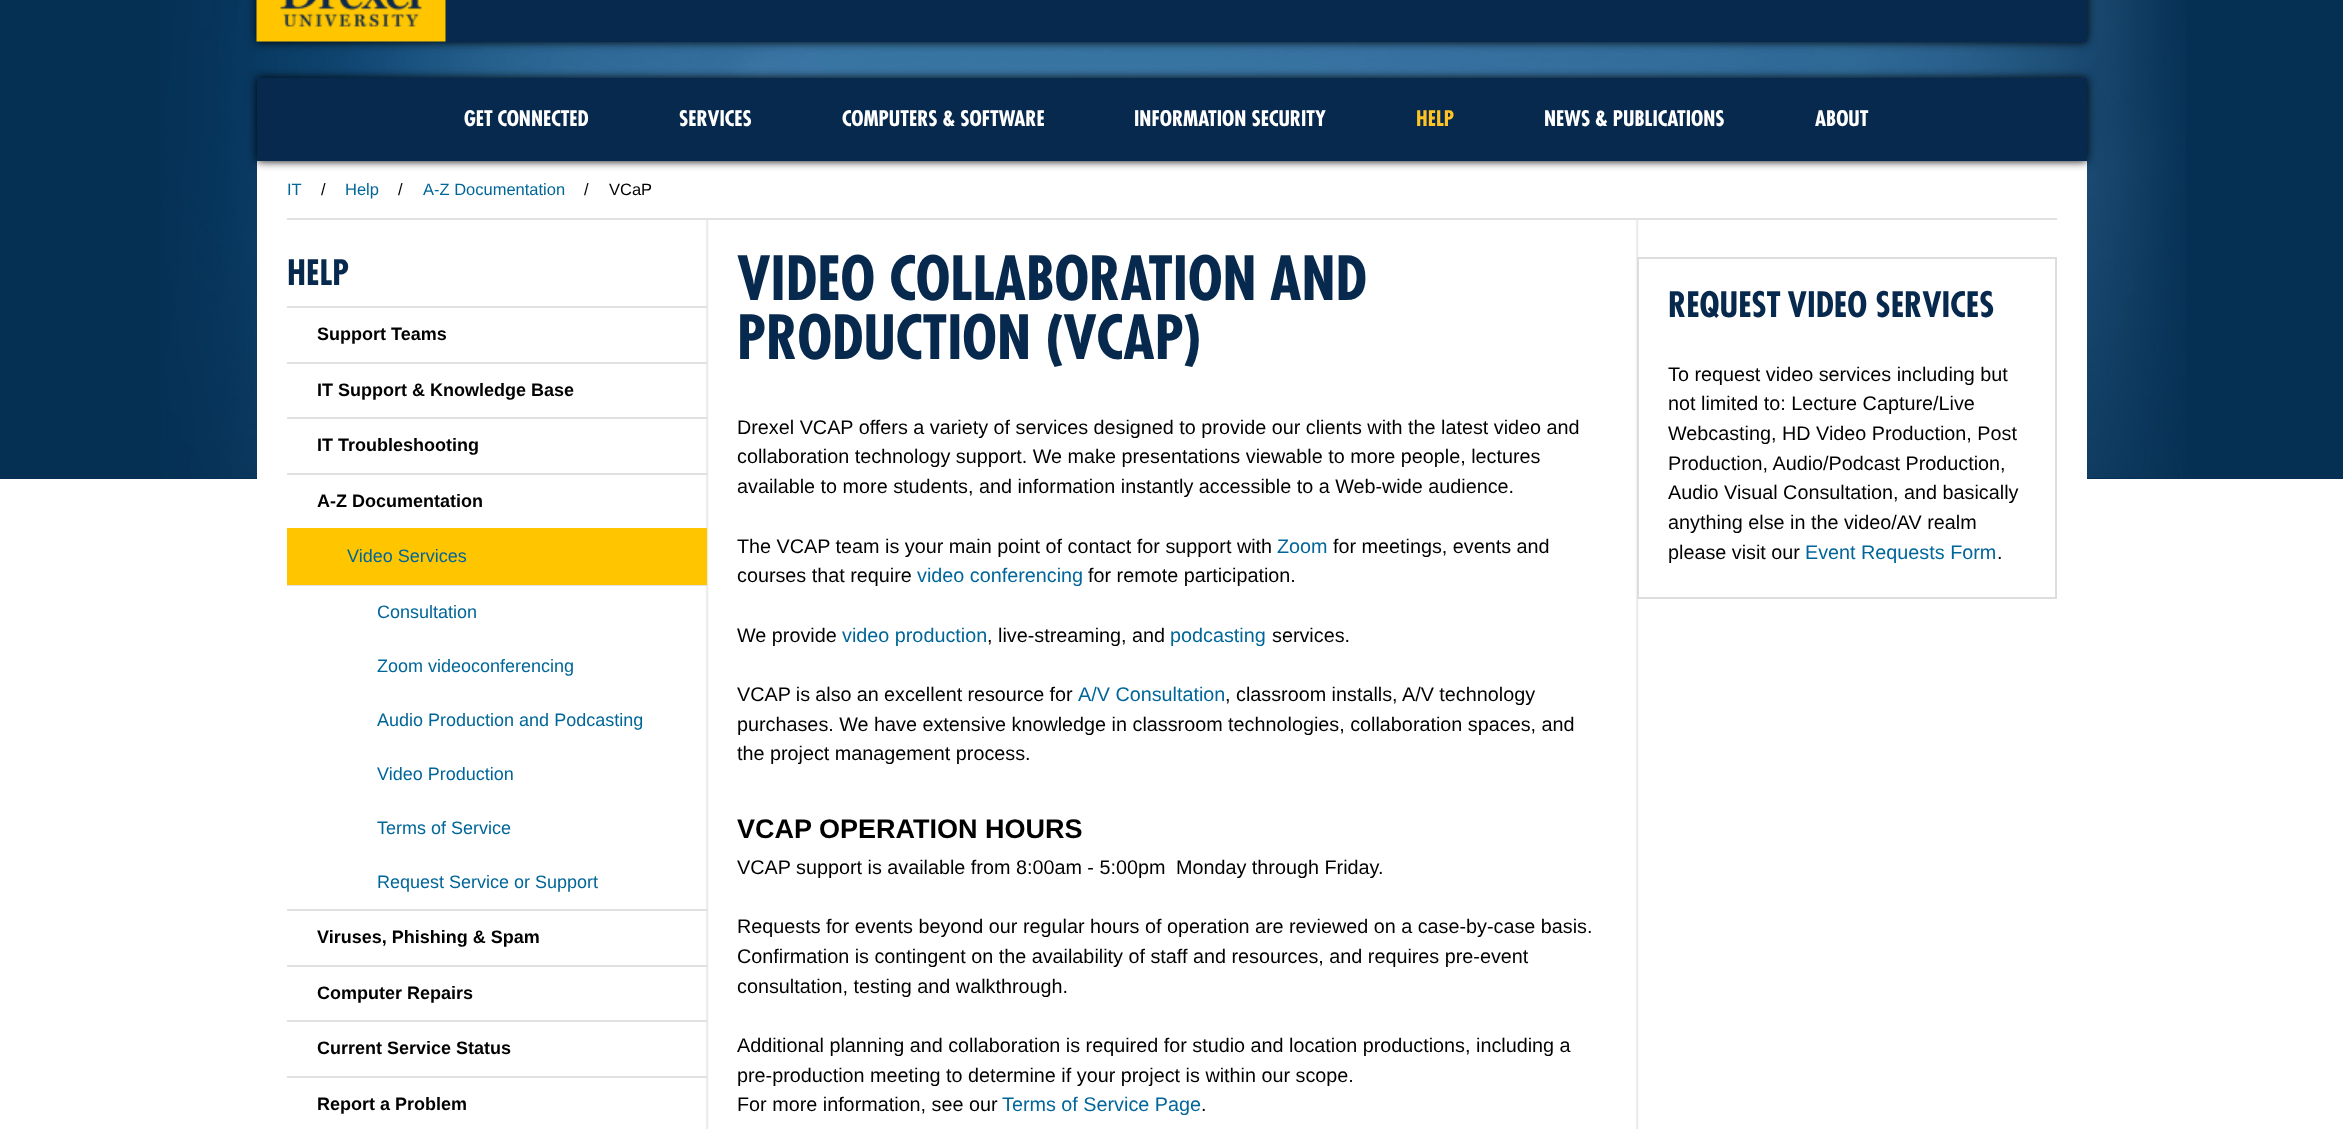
<svg xmlns="http://www.w3.org/2000/svg" width="2343" height="1129">
<rect width="100%" height="100%" fill="#fff"/>
<rect width="2343" height="479" fill="#052f53"/>
<image x="161" y="0" width="2025" height="478" href="media/1.png"/>
<rect x="257" y="-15" width="1830" height="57" fill="#000" filter="blur(5px)"/>
<rect x="257" width="1830" height="42" fill="#07294d"/>
<image x="256" y="0" width="190" height="42" href="media/2.png"/>
<rect x="257" y="161" width="1830" height="318" fill="#fff"/>
<rect x="257" y="78" width="1830" height="83" fill="#000" filter="blur(5px)"/>
<rect x="257" y="78" width="1830" height="83" fill="#07294d"/>
<text x="464" y="126" style="font-family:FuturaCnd;font-size:21px;font-weight:bold;fill:#fff">GET CONNECTED</text>
<text x="679" y="126" style="font-family:FuturaCnd;font-size:21px;font-weight:bold;fill:#fff">SERVICES</text>
<text x="842" y="126" style="font-family:FuturaCnd;font-size:21px;font-weight:bold;fill:#fff">COMPUTERS &amp; SOFTWARE</text>
<text x="1134" y="126" style="font-family:FuturaCnd;font-size:21px;font-weight:bold;fill:#fff">INFORMATION SECURITY</text>
<text x="1416" y="126" style="font-family:FuturaCnd;font-size:21px;font-weight:bold;fill:#ffc325">HELP</text>
<text x="1544" y="126" style="font-family:FuturaCnd;font-size:21px;font-weight:bold;fill:#fff">NEWS &amp; PUBLICATIONS</text>
<text x="1815" y="126" style="font-family:FuturaCnd;font-size:21px;font-weight:bold;fill:#fff">ABOUT</text>
<image x="705" y="220" width="934" height="909" href="media/3.png"/>
<rect x="287" y="218" width="1770" height="2" fill="#e1e1e0"/>
<text x="287" y="195" style="font-family:Liberation Sans;font-size:16.5px;fill:#069">IT</text>
<text x="321" y="195" style="font-family:Liberation Sans;font-size:16.5px;fill:#000">/</text>
<text x="345" y="195" style="font-family:Liberation Sans;font-size:16.5px;fill:#069">Help</text>
<text x="398" y="195" style="font-family:Liberation Sans;font-size:16.5px;fill:#000">/</text>
<text x="423" y="195" style="font-family:Liberation Sans;font-size:16.5px;fill:#069">A-Z Documentation</text>
<text x="584" y="195" style="font-family:Liberation Sans;font-size:16.5px;fill:#000">/</text>
<text x="609" y="195" style="font-family:Liberation Sans;font-size:16.5px;fill:#000">VCaP</text>
<text x="287" y="285" style="font-family:FuturaCnd;font-size:34.25px;font-weight:bold;fill:#07294d">HELP</text>
<rect x="287" y="306" width="420" height="2" fill="#e1e1e0"/>
<rect x="287" y="362" width="420" height="2" fill="#e1e1e0"/>
<text x="317" y="340" style="font-family:Liberation Sans;font-size:18px;font-weight:bold;fill:#000">Support Teams</text>
<rect x="287" y="417" width="420" height="2" fill="#e1e1e0"/>
<text x="317" y="396" style="font-family:Liberation Sans;font-size:18px;font-weight:bold;fill:#000">IT Support &amp; Knowledge Base</text>
<rect x="287" y="473" width="420" height="2" fill="#e1e1e0"/>
<text x="317" y="451" style="font-family:Liberation Sans;font-size:18px;font-weight:bold;fill:#000">IT Troubleshooting</text>
<rect x="287" y="909" width="420" height="2" fill="#e1e1e0"/>
<text x="317" y="507" style="font-family:Liberation Sans;font-size:18px;font-weight:bold;fill:#000">A-Z Documentation</text>
<rect x="287" y="528" width="420" height="57" fill="#ffc600"/>
<text x="347" y="562" style="font-family:Liberation Sans;font-size:18px;fill:#069">Video Services</text>
<rect x="287" y="585" width="420" height="1" fill="#e1e1e0"/>
<text x="377" y="618" style="font-family:Liberation Sans;font-size:18px;fill:#069">Consultation</text>
<text x="377" y="672" style="font-family:Liberation Sans;font-size:18px;fill:#069">Zoom videoconferencing</text>
<text x="377" y="726" style="font-family:Liberation Sans;font-size:18px;fill:#069">Audio Production and Podcasting</text>
<text x="377" y="780" style="font-family:Liberation Sans;font-size:18px;fill:#069">Video Production</text>
<text x="377" y="834" style="font-family:Liberation Sans;font-size:18px;fill:#069">Terms of Service</text>
<text x="377" y="888" style="font-family:Liberation Sans;font-size:18px;fill:#069">Request Service or Support</text>
<rect x="287" y="965" width="420" height="2" fill="#e1e1e0"/>
<text x="317" y="943" style="font-family:Liberation Sans;font-size:18px;font-weight:bold;fill:#000">Viruses, Phishing &amp; Spam</text>
<rect x="287" y="1020" width="420" height="2" fill="#e1e1e0"/>
<text x="317" y="999" style="font-family:Liberation Sans;font-size:18px;font-weight:bold;fill:#000">Computer Repairs</text>
<rect x="287" y="1076" width="420" height="2" fill="#e1e1e0"/>
<text x="317" y="1054" style="font-family:Liberation Sans;font-size:18px;font-weight:bold;fill:#000">Current Service Status</text>
<text x="317" y="1110" style="font-family:Liberation Sans;font-size:18px;font-weight:bold;fill:#000">Report a Problem</text>
<text x="737" y="300" style="font-family:FuturaCnd;font-size:59.4px;font-weight:bold;fill:#07294d">VIDEO COLLABORATION AND</text>
<text x="737" y="359" style="font-family:FuturaCnd;font-size:59.4px;font-weight:bold;fill:#07294d">PRODUCTION (VCAP)</text>
<text x="737" y="434" style="font-family:Liberation Sans;font-size:19.8px;fill:#000">Drexel VCAP offers a variety of services designed to provide our clients with the latest video and</text>
<text x="737" y="463" style="font-family:Liberation Sans;font-size:19.8px;fill:#000">collaboration technology support. We make presentations viewable to more people, lectures</text>
<text x="737" y="493" style="font-family:Liberation Sans;font-size:19.8px;fill:#000">available to more students, and information instantly accessible to a Web-wide audience.</text>
<text x="737" y="553" style="font-family:Liberation Sans;font-size:19.8px;fill:#000">The VCAP team is your main point of contact for support with</text>
<text x="1277" y="553" style="font-family:Liberation Sans;font-size:19.8px;fill:#069">Zoom</text>
<text x="1333" y="553" style="font-family:Liberation Sans;font-size:19.8px;fill:#000">for meetings, events and</text>
<text x="737" y="582" style="font-family:Liberation Sans;font-size:19.8px;fill:#000">courses that require</text>
<text x="917" y="582" style="font-family:Liberation Sans;font-size:19.8px;fill:#069">video conferencing</text>
<text x="1088" y="582" style="font-family:Liberation Sans;font-size:19.8px;fill:#000">for remote participation.</text>
<text x="737" y="642" style="font-family:Liberation Sans;font-size:19.8px;fill:#000">We provide</text>
<text x="842" y="642" style="font-family:Liberation Sans;font-size:19.8px;fill:#069">video production</text>
<text x="987" y="642" style="font-family:Liberation Sans;font-size:19.8px;fill:#000">, live-streaming, and</text>
<text x="1170" y="642" style="font-family:Liberation Sans;font-size:19.8px;fill:#069">podcasting</text>
<text x="1272" y="642" style="font-family:Liberation Sans;font-size:19.8px;fill:#000">services.</text>
<text x="737" y="701" word-spacing="-0.25" style="font-family:Liberation Sans;font-size:19.8px;fill:#000">VCAP is also an excellent resource for</text>
<text x="1078" y="701" style="font-family:Liberation Sans;font-size:19.8px;fill:#069">A/V Consultation</text>
<text x="1225" y="701" style="font-family:Liberation Sans;font-size:19.8px;fill:#000">, classroom installs, A/V technology</text>
<text x="737" y="731" style="font-family:Liberation Sans;font-size:19.8px;fill:#000">purchases. We have extensive knowledge in classroom technologies, collaboration spaces, and</text>
<text x="737" y="760" style="font-family:Liberation Sans;font-size:19.8px;fill:#000">the project management process.</text>
<text x="737" y="838" style="font-family:Liberation Sans;font-size:27px;font-weight:bold;fill:#000">VCAP OPERATION HOURS</text>
<text x="737" y="874" style="font-family:Liberation Sans;font-size:19.8px;fill:#000">VCAP support is available from 8:00am - 5:00pm</text>
<text x="1176" y="874" style="font-family:Liberation Sans;font-size:19.8px;fill:#000">Monday through Friday.</text>
<text x="737" y="933" style="font-family:Liberation Sans;font-size:19.8px;fill:#000">Requests for events beyond our regular hours of operation are reviewed on a case-by-case basis.</text>
<text x="737" y="963" style="font-family:Liberation Sans;font-size:19.8px;fill:#000">Confirmation is contingent on the availability of staff and resources, and requires pre-event</text>
<text x="737" y="993" style="font-family:Liberation Sans;font-size:19.8px;fill:#000">consultation, testing and walkthrough.</text>
<text x="737" y="1052" style="font-family:Liberation Sans;font-size:19.8px;fill:#000">Additional planning and collaboration is required for studio and location productions, including a</text>
<text x="737" y="1082" style="font-family:Liberation Sans;font-size:19.8px;fill:#000">pre-production meeting to determine if your project is within our scope.</text>
<text x="737" y="1111" style="font-family:Liberation Sans;font-size:19.8px;fill:#000">For more information, see our</text>
<text x="1002" y="1111" style="font-family:Liberation Sans;font-size:19.8px;fill:#069">Terms of Service Page</text>
<text x="1201" y="1111" style="font-family:Liberation Sans;font-size:19.8px;fill:#000">.</text>
<rect x="1638" y="258" width="418" height="340" fill="none" stroke="#ddd" stroke-width="2"/>
<text x="1668" y="317" style="font-family:FuturaCnd;font-size:34.25px;font-weight:bold;fill:#07294d">REQUEST VIDEO SERVICES</text>
<text x="1668" y="381" style="font-family:Liberation Sans;font-size:19.8px;fill:#000">To request video services including but</text>
<text x="1668" y="410" style="font-family:Liberation Sans;font-size:19.8px;fill:#000">not limited to: Lecture Capture/Live</text>
<text x="1668" y="440" style="font-family:Liberation Sans;font-size:19.8px;fill:#000">Webcasting, HD Video Production, Post</text>
<text x="1668" y="470" style="font-family:Liberation Sans;font-size:19.8px;fill:#000">Production, Audio/Podcast Production,</text>
<text x="1668" y="499" style="font-family:Liberation Sans;font-size:19.8px;fill:#000">Audio Visual Consultation, and basically</text>
<text x="1668" y="529" style="font-family:Liberation Sans;font-size:19.8px;fill:#000">anything else in the video/AV realm</text>
<text x="1668" y="559" style="font-family:Liberation Sans;font-size:19.8px;fill:#000">please visit our</text>
<text x="1805" y="559" style="font-family:Liberation Sans;font-size:19.8px;fill:#069">Event Requests Form</text>
<text x="1997" y="559" style="font-family:Liberation Sans;font-size:19.8px;fill:#000">.</text>
</svg>
